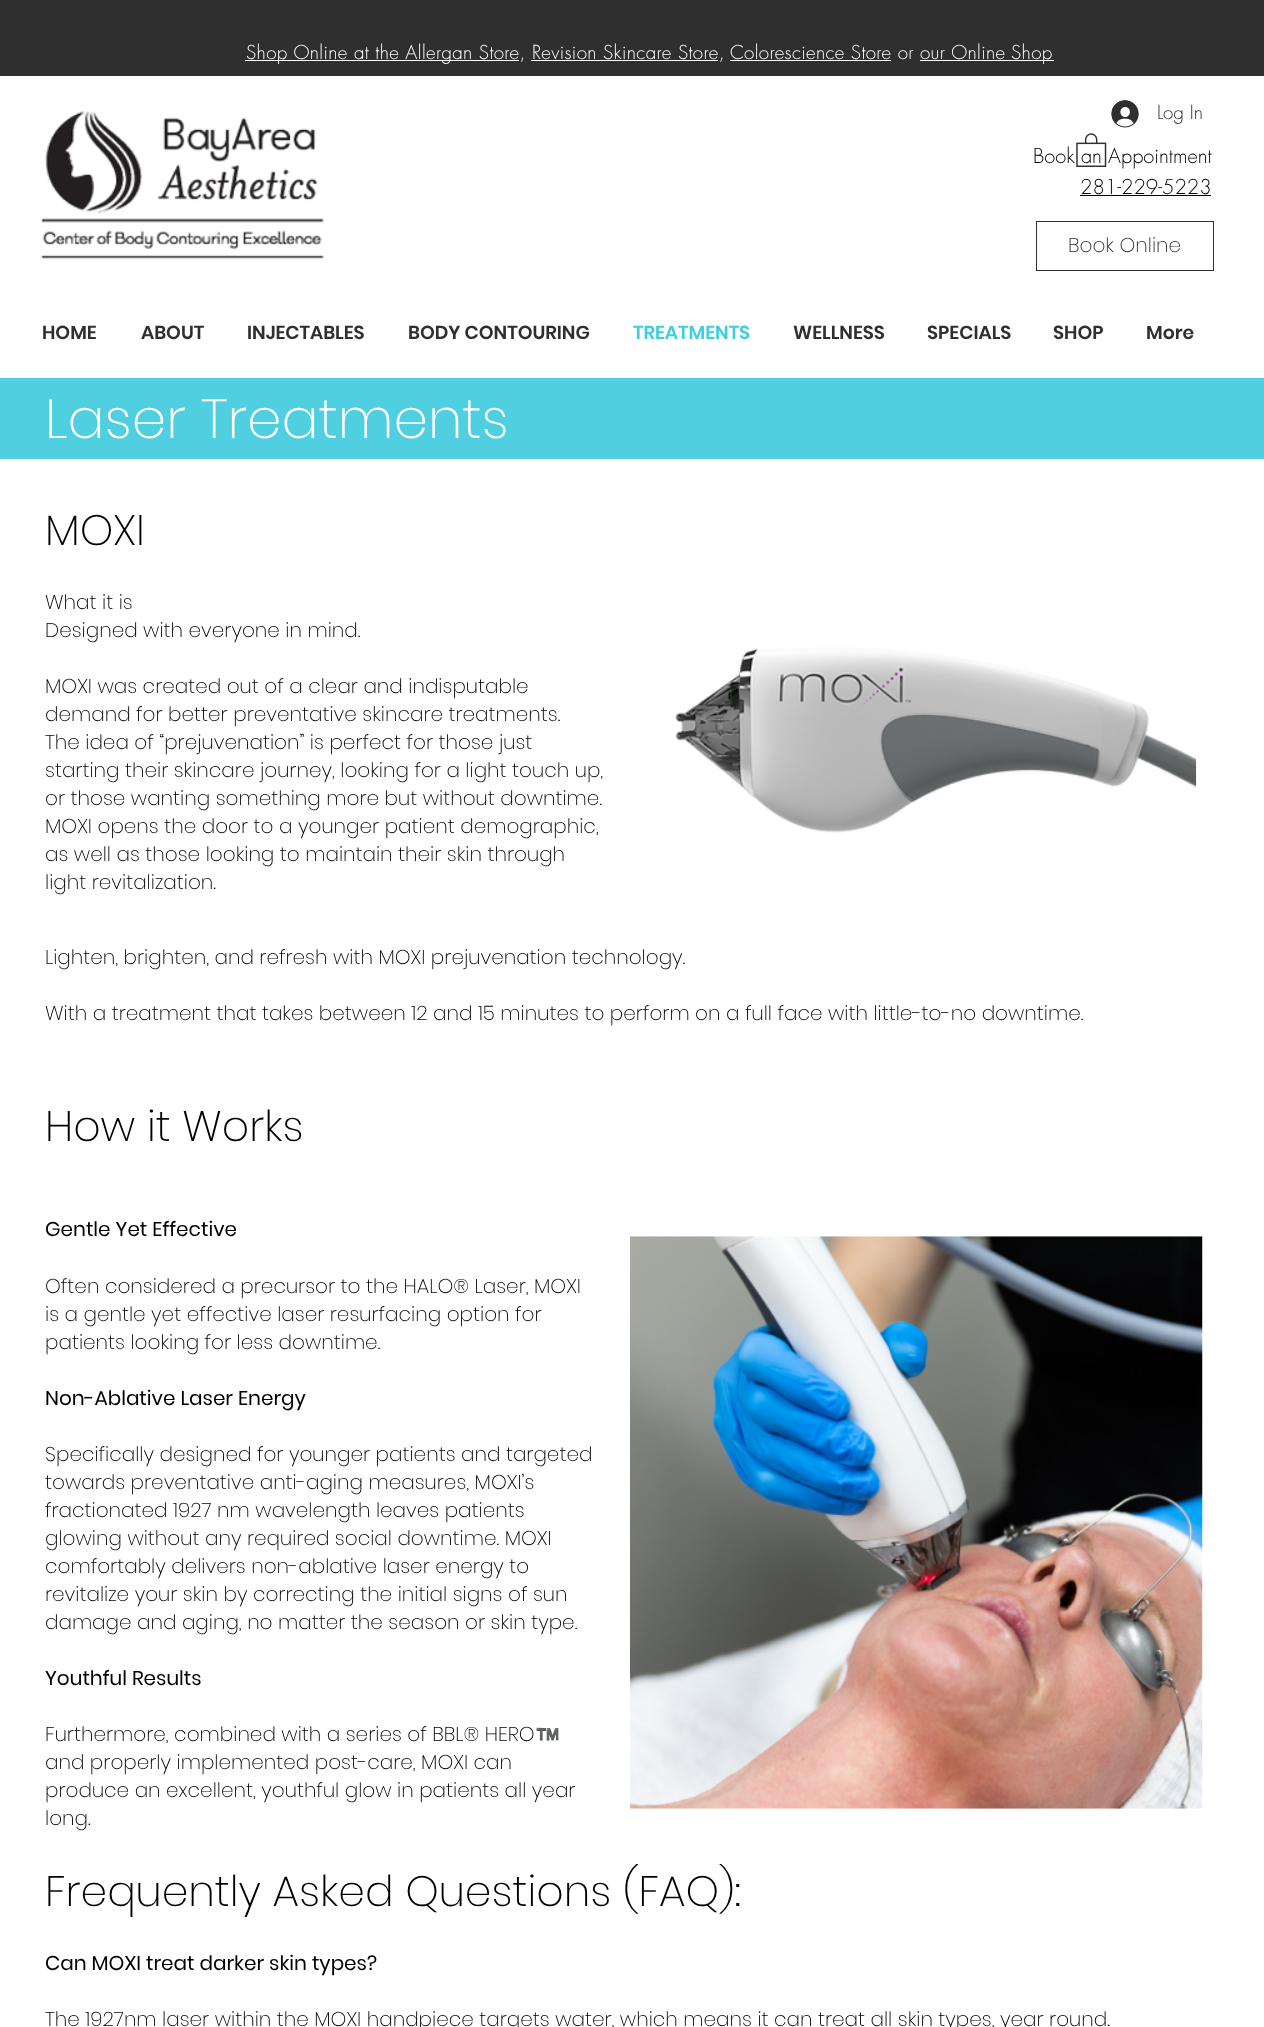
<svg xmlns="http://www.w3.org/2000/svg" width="1264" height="2027">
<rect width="100%" height="100%" fill="#fff"/>
<rect width="1264" height="76" fill="#2f2f30"/>
<rect x="245" y="60" width="274" height="1" fill="#fff"/>
<text x="246" y="59" style="font-family:futura;font-size:18.75px;font-weight:300;letter-spacing:0.38px;fill:#fff">Shop Online at the Allergan Store, Revision Skincare Store,</text>
<rect x="531" y="60" width="187" height="1" fill="#fff"/>
<text x="730" y="59" style="font-family:futura;font-size:18.75px;font-weight:300;letter-spacing:0.38px;fill:#fff">Colorescience Store or our Online</text>
<rect x="730" y="60" width="161" height="1" fill="#fff"/>
<rect x="920" y="60" width="134" height="1" fill="#fff"/>
<text x="1011" y="59" style="font-family:futura;font-size:18.75px;font-weight:300;letter-spacing:0.38px;fill:#fff">Shop</text>
<image x="41" y="111" width="283" height="148" href="media/1.png"/>
<image x="1111" y="100" width="28" height="28" href="media/2.png"/>
<text x="1157" y="119" style="font-family:futura;font-size:18.75px;font-weight:300;fill:#2f2f30">Log In</text>
<text x="1033" y="163" style="font-family:futura;font-size:20px;font-weight:300;fill:#000">Book an Appointment</text>
<text x="1080" y="194" style="font-family:futura;font-size:20px;font-weight:300;fill:#000">281-229-5223</text>
<rect x="1080" y="195" width="131" height="1" fill="#000"/>
<rect x="1036.5" y="221.5" width="177" height="49" fill="none" stroke="#2f2f30"/>
<text x="1068" y="252" style="font-family:Poppins;font-size:20px;font-weight:200;fill:#2f2f30">Book Online</text>
<text x="42" y="339" style="font-family:Poppins;font-size:18.75px;font-weight:600;fill:#2f2f30">HOME</text>
<text x="141" y="339" style="font-family:Poppins;font-size:18.75px;font-weight:600;fill:#2f2f30">ABOUT</text>
<text x="247" y="339" style="font-family:Poppins;font-size:18.75px;font-weight:600;fill:#2f2f30">INJECTABLES</text>
<text x="408" y="339" style="font-family:Poppins;font-size:18.75px;font-weight:600;fill:#2f2f30">BODY CONTOURING</text>
<text x="633" y="339" style="font-family:Poppins;font-size:18.75px;font-weight:600;fill:#3dcfdf">TREATMENTS</text>
<text x="793" y="339" style="font-family:Poppins;font-size:18.75px;font-weight:600;fill:#2f2f30">WELLNESS</text>
<text x="927" y="339" style="font-family:Poppins;font-size:18.75px;font-weight:600;fill:#2f2f30">SPECIALS</text>
<text x="1053" y="339" style="font-family:Poppins;font-size:18.75px;font-weight:600;fill:#2f2f30">SHOP</text>
<text x="1146" y="339" style="font-family:Poppins;font-size:18.75px;font-weight:600;fill:#2f2f30">More</text>
<image x="1076" y="133" width="31" height="34" href="media/3.png"/>
<rect y="378" width="1264" height="81" fill="#50cfe0"/>
<text x="45" y="438" style="font-family:Poppins;font-size:55px;font-weight:200;fill:#fff">Laser Treatments</text>
<text x="45" y="545" style="font-family:Poppins;font-size:42.5px;font-weight:200;fill:#000">MOXI</text>
<text x="45" y="609" style="font-family:Poppins;font-size:20px;font-weight:200;fill:#000">What it is</text>
<text x="45" y="637" style="font-family:Poppins;font-size:20px;font-weight:200;fill:#000">Designed with everyone in mind.</text>
<text x="45" y="693" style="font-family:Poppins;font-size:20px;font-weight:200;fill:#000">MOXI was created out of a clear and indisputable</text>
<text x="45" y="721" style="font-family:Poppins;font-size:20px;font-weight:200;fill:#000">demand for better preventative skincare treatments.</text>
<text x="45" y="749" style="font-family:Poppins;font-size:20px;font-weight:200;fill:#000">The idea of “prejuvenation” is perfect for those just</text>
<text x="45" y="777" style="font-family:Poppins;font-size:20px;font-weight:200;fill:#000">starting their skincare journey, looking for a light touch up,</text>
<text x="45" y="805" style="font-family:Poppins;font-size:20px;font-weight:200;fill:#000">or those wanting something more but without downtime.</text>
<text x="45" y="833" style="font-family:Poppins;font-size:20px;font-weight:200;fill:#000">MOXI opens the door to a younger patient demographic,</text>
<text x="45" y="861" style="font-family:Poppins;font-size:20px;font-weight:200;fill:#000">as well as those looking to maintain their skin through</text>
<text x="45" y="889" style="font-family:Poppins;font-size:20px;font-weight:200;fill:#000">light revitalization.</text>
<image x="675" y="647" width="522" height="186" href="media/4.png"/>
<text x="45" y="964" style="font-family:Poppins;font-size:20px;font-weight:200;fill:#000">Lighten, brighten, and refresh with MOXI prejuvenation technology.</text>
<text x="45" y="1020" style="font-family:Poppins;font-size:20px;font-weight:200;fill:#000">With a treatment that takes between 12 and 15 minutes to perform on a full face with little-to-no downtime.</text>
<text x="45" y="1141" style="font-family:Poppins;font-size:42.5px;font-weight:200;fill:#000">How it Works</text>
<text x="45" y="1236" style="font-family:Poppins;font-size:20px;fill:#000">Gentle Yet Effective</text>
<text x="45" y="1293" style="font-family:Poppins;font-size:20px;font-weight:200;fill:#000">Often considered a precursor to the HALO® Laser, MOXI</text>
<text x="45" y="1321" style="font-family:Poppins;font-size:20px;font-weight:200;fill:#000">is a gentle yet effective laser resurfacing option for</text>
<text x="45" y="1349" style="font-family:Poppins;font-size:20px;font-weight:200;fill:#000">patients looking for less downtime.</text>
<text x="45" y="1405" style="font-family:Poppins;font-size:20px;fill:#000">Non-Ablative Laser Energy</text>
<text x="45" y="1461" style="font-family:Poppins;font-size:20px;font-weight:200;fill:#000">Specifically designed for younger patients and targeted</text>
<text x="45" y="1489" style="font-family:Poppins;font-size:20px;font-weight:200;fill:#000">towards preventative anti-aging measures, MOXI’s</text>
<text x="45" y="1517" style="font-family:Poppins;font-size:20px;font-weight:200;fill:#000">fractionated 1927 nm wavelength leaves patients</text>
<text x="45" y="1545" style="font-family:Poppins;font-size:20px;font-weight:200;fill:#000">glowing without any required social downtime. MOXI</text>
<text x="45" y="1573" style="font-family:Poppins;font-size:20px;font-weight:200;fill:#000">comfortably delivers non-ablative laser energy to</text>
<text x="45" y="1601" style="font-family:Poppins;font-size:20px;font-weight:200;fill:#000">revitalize your skin by correcting the initial signs of sun</text>
<text x="45" y="1629" style="font-family:Poppins;font-size:20px;font-weight:200;fill:#000">damage and aging, no matter the season or skin type.</text>
<text x="45" y="1685" style="font-family:Poppins;font-size:20px;fill:#000">Youthful Results</text>
<text x="45" y="1741" style="font-family:Poppins;font-size:20px;font-weight:200;fill:#000">Furthermore, combined with a series of BBL® HERO</text>
<text x="535" y="1741" style="font-family:Noto Color Emoji;font-size:20px;fill:#000">™️</text>
<text x="45" y="1769" style="font-family:Poppins;font-size:20px;font-weight:200;fill:#000">and properly implemented post-care, MOXI can</text>
<text x="45" y="1797" style="font-family:Poppins;font-size:20px;font-weight:200;fill:#000">produce an excellent, youthful glow in patients all year</text>
<text x="45" y="1825" style="font-family:Poppins;font-size:20px;font-weight:200;fill:#000">long.</text>
<image x="630" y="1236" width="573" height="573" href="media/5.png"/>
<text x="45" y="1906" style="font-family:Poppins;font-size:42.5px;font-weight:200;fill:#000">Frequently Asked Questions (FAQ):</text>
<text x="45" y="1970" style="font-family:Poppins;font-size:20px;fill:#000">Can MOXI treat darker skin types?</text>
<text x="45" y="2026" style="font-family:Poppins;font-size:20px;font-weight:200;fill:#000">The 1927nm laser within the MOXI handpiece targets water, which means it can treat all skin types, year round.</text>
</svg>
